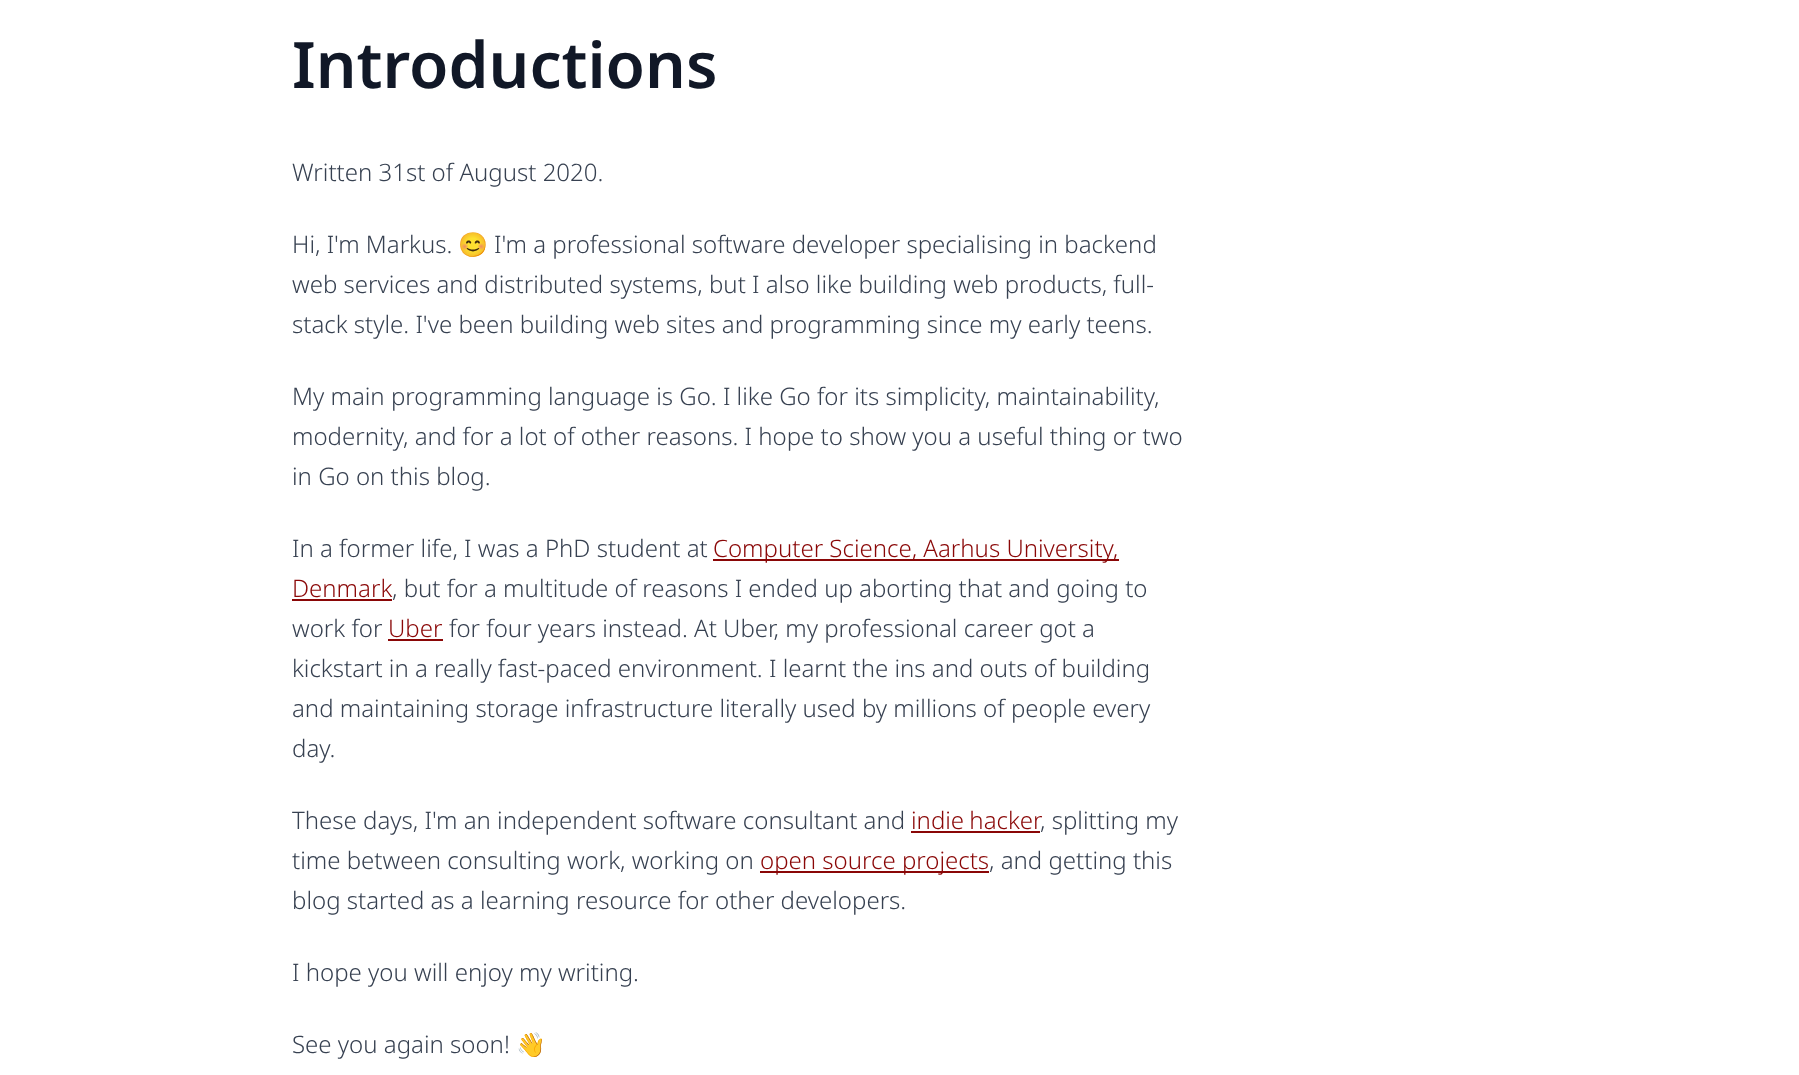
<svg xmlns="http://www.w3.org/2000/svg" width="1799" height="1075">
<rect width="100%" height="100%" fill="#fff"/>
<text x="292" y="88" style="font-family:Noto Sans;font-size:64px;font-weight:600;fill:#111827">Introductions</text>
<text x="292" y="181" style="font-family:Noto Sans;font-size:24px;font-weight:300;fill:#374151">Written 31st of August 2020.</text>
<text x="292" y="253" style="font-family:Noto Sans;font-size:24px;font-weight:300;fill:#374151">Hi, I'm Markus.</text>
<text x="458" y="253" style="font-family:Noto Color Emoji;font-size:24px;fill:#374151">😊</text>
<text x="494" y="253" style="font-family:Noto Sans;font-size:24px;font-weight:300;fill:#374151">I'm a professional software developer specialising in backend</text>
<text x="292" y="293" style="font-family:Noto Sans;font-size:24px;font-weight:300;fill:#374151">web services and distributed systems, but I also like building web products, full-</text>
<text x="292" y="333" style="font-family:Noto Sans;font-size:24px;font-weight:300;fill:#374151">stack style. I've been building web sites and programming since my early teens.</text>
<text x="292" y="405" style="font-family:Noto Sans;font-size:24px;font-weight:300;fill:#374151">My main programming language is Go. I like Go for its simplicity, maintainability,</text>
<text x="292" y="445" style="font-family:Noto Sans;font-size:24px;font-weight:300;fill:#374151">modernity, and for a lot of other reasons. I hope to show you a useful thing or two</text>
<text x="292" y="485" style="font-family:Noto Sans;font-size:24px;font-weight:300;fill:#374151">in Go on this blog.</text>
<text x="292" y="557" style="font-family:Noto Sans;font-size:24px;font-weight:300;fill:#374151">In a former life, I was a PhD student at</text>
<rect x="713" y="559" width="406" height="2" fill="#8a0707"/>
<text x="713" y="557" style="font-family:Noto Sans;font-size:24px;font-weight:300;fill:#8a0707">Computer Science, Aarhus University,</text>
<text x="292" y="597" style="font-family:Noto Sans;font-size:24px;font-weight:300;fill:#8a0707">Denmark</text>
<rect x="292" y="599" width="100" height="2" fill="#8a0707"/>
<text x="392" y="597" style="font-family:Noto Sans;font-size:24px;font-weight:300;fill:#374151">, but for a multitude of reasons I ended up aborting that and going to</text>
<text x="292" y="637" style="font-family:Noto Sans;font-size:24px;font-weight:300;fill:#374151">work for</text>
<text x="388" y="637" style="font-family:Noto Sans;font-size:24px;font-weight:300;fill:#8a0707">Uber</text>
<rect x="388" y="639" width="55" height="2" fill="#8a0707"/>
<text x="449" y="637" style="font-family:Noto Sans;font-size:24px;font-weight:300;fill:#374151">for four years instead. At Uber, my professional career got a</text>
<text x="292" y="677" style="font-family:Noto Sans;font-size:24px;font-weight:300;fill:#374151">kickstart in a really fast-paced environment. I learnt the ins and outs of building</text>
<text x="292" y="717" style="font-family:Noto Sans;font-size:24px;font-weight:300;fill:#374151">and maintaining storage infrastructure literally used by millions of people every</text>
<text x="292" y="757" style="font-family:Noto Sans;font-size:24px;font-weight:300;fill:#374151">day.</text>
<text x="292" y="829" style="font-family:Noto Sans;font-size:24px;font-weight:300;fill:#374151">These days, I'm an independent software consultant and</text>
<text x="911" y="829" word-spacing="-1" style="font-family:Noto Sans;font-size:24px;font-weight:300;fill:#8a0707">indie hacker</text>
<rect x="911" y="831" width="129" height="2" fill="#8a0707"/>
<text x="1040" y="829" style="font-family:Noto Sans;font-size:24px;font-weight:300;fill:#374151">, splitting my</text>
<text x="292" y="869" style="font-family:Noto Sans;font-size:24px;font-weight:300;fill:#374151">time between consulting work, working on</text>
<rect x="760" y="871" width="229" height="2" fill="#8a0707"/>
<text x="760" y="869" style="font-family:Noto Sans;font-size:24px;font-weight:300;fill:#8a0707">open source projects</text>
<text x="989" y="869" style="font-family:Noto Sans;font-size:24px;font-weight:300;fill:#374151">, and getting this</text>
<text x="292" y="909" style="font-family:Noto Sans;font-size:24px;font-weight:300;fill:#374151">blog started as a learning resource for other developers.</text>
<text x="292" y="981" style="font-family:Noto Sans;font-size:24px;font-weight:300;fill:#374151">I hope you will enjoy my writing.</text>
<text x="292" y="1053" style="font-family:Noto Sans;font-size:24px;font-weight:300;fill:#374151">See you again soon!</text>
<text x="516" y="1053" style="font-family:Noto Color Emoji;font-size:24px;fill:#374151">👋</text>
</svg>
